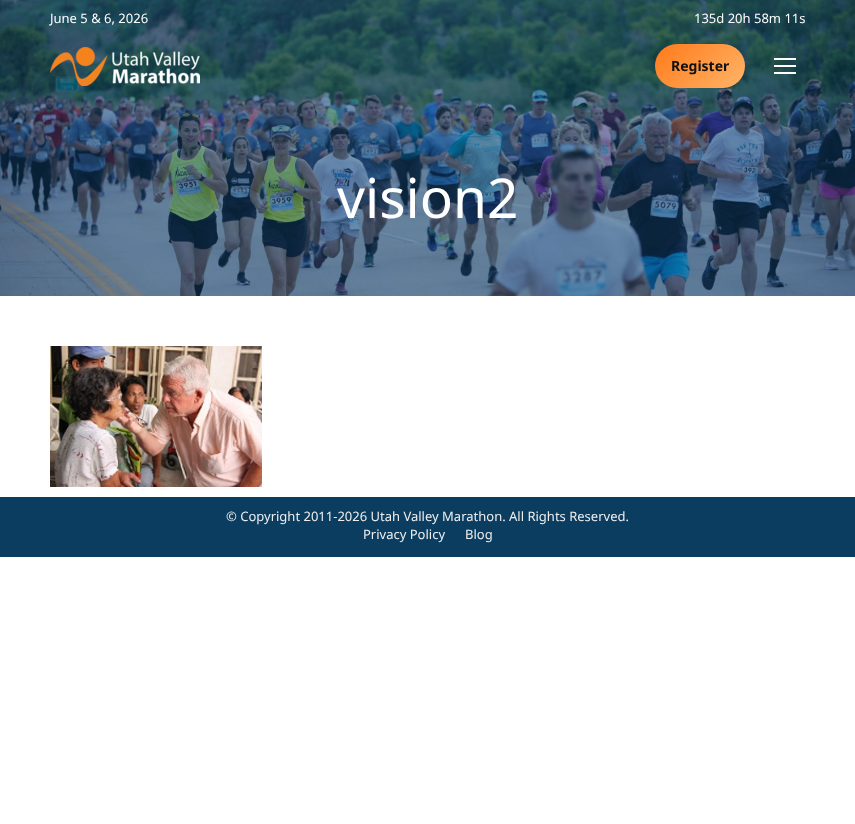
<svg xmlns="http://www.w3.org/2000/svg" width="855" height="824">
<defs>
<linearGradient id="g1" gradientUnits="userSpaceOnUse" x1="667" y1="33" x2="734" y2="100"><stop offset="0" stop-color="#ff7a1a"/><stop offset="1" stop-color="#ffb569"/></linearGradient>
</defs>
<rect width="100%" height="100%" fill="#fff"/>
<image x="0" y="0" width="855" height="296" href="media/2.png"/>
<text x="50" y="23" style="font-family:Noto Sans;font-size:13px;fill:#fff">June 5 &amp; 6, 2026</text>
<text x="694" y="23" style="font-family:Noto Sans;font-size:13px;fill:#fff">135d 20h 58m 11s</text>
<image x="50" y="47" width="150" height="39" href="media/1.png"/>
<rect x="655" y="44" width="90" height="44" rx="22" fill="url(#g1)"/>
<text x="671" y="71" style="font-family:Noto Sans;font-size:14px;font-weight:bold;fill:#111">Register</text>
<rect x="774" y="58" width="22" height="2" fill="#fff"/>
<rect x="774" y="65" width="22" height="2" fill="#fff"/>
<rect x="774" y="72" width="22" height="2" fill="#fff"/>
<text x="337" y="218" style="font-family:Noto Sans;font-size:55px;fill:#fff">vision2</text>
<image x="50" y="346" width="212" height="141" href="media/3.png"/>
<rect y="497" width="855" height="60" fill="#0b3d60"/>
<text x="226" y="521" style="font-family:Noto Sans;font-size:13px;fill:#eee">© Copyright 2011-2026 Utah Valley Marathon. All Rights Reserved.</text>
<text x="363" y="539" style="font-family:Noto Sans;font-size:13px;fill:#eee">Privacy Policy</text>
<text x="465" y="539" style="font-family:Noto Sans;font-size:13px;fill:#eee">Blog</text>
</svg>
